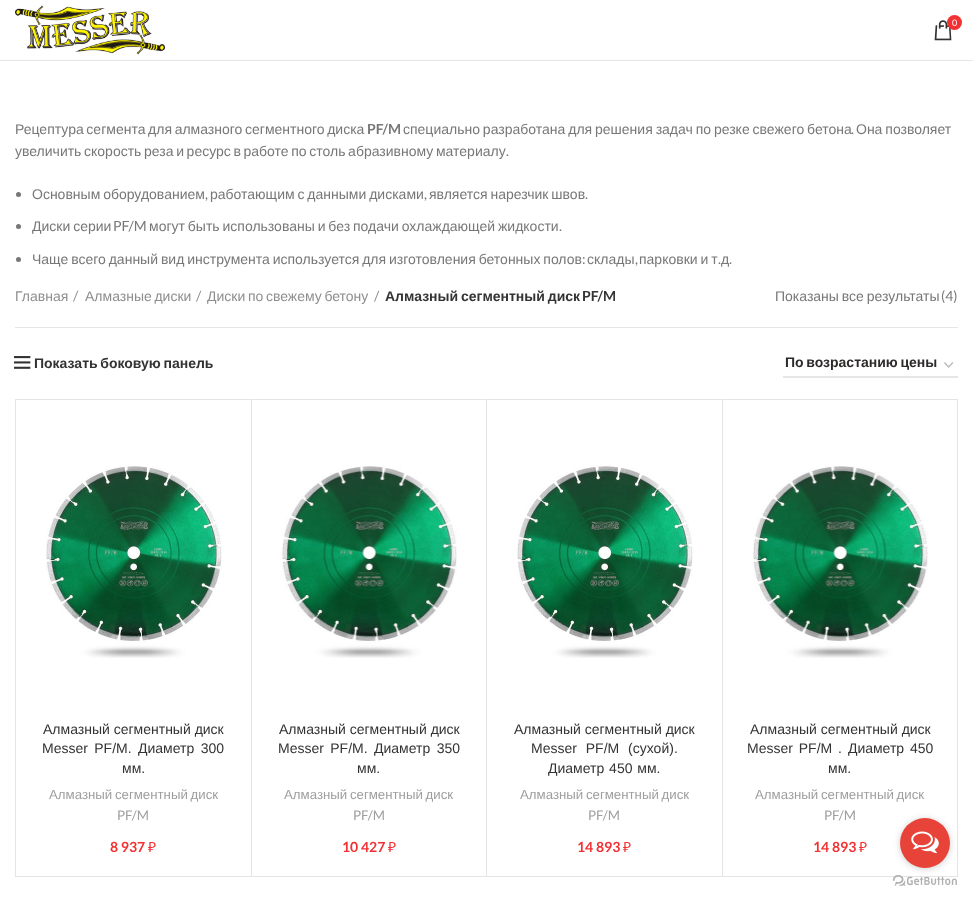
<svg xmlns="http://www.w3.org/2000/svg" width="973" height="902">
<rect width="100%" height="100%" fill="#fff"/>
<rect y="60" width="973" height="1" fill="#e6e6e6"/>
<image x="15" y="5" width="150" height="50" href="media/1.png"/>
<image x="934" y="20" width="18" height="21" href="media/2.png"/>
<circle cx="954.5" cy="22.5" r="7.5" fill="#f33032"/>
<text x="952" y="26" style="font-family:Lato;font-size:9px;fill:#fff">0</text>
<text x="15" y="134" word-spacing="-1.25" style="font-family:Liberation Sans;font-size:14px;fill:#777">Рецептура сегмента для алмазного сегментного диска</text>
<text x="367" y="134" style="font-family:Lato;font-size:14px;font-weight:bold;fill:#777">PF/M</text>
<text x="403" y="134" word-spacing="-1" style="font-family:Liberation Sans;font-size:14px;fill:#777">специально разработана для решения задач по резке свежего бетона</text>
<text x="851" y="134" style="font-family:Lato;font-size:14px;fill:#777">.</text>
<text x="856" y="134" word-spacing="-1" style="font-family:Liberation Sans;font-size:14px;fill:#777">Она позволяет</text>
<text x="15" y="156" word-spacing="-1.25" style="font-family:Liberation Sans;font-size:14px;fill:#777">увеличить скорость реза и ресурс в работе по столь абразивному материалу</text>
<text x="506" y="156" style="font-family:Lato;font-size:14px;fill:#777">.</text>
<circle cx="18.5" cy="194.5" r="2.5" fill="#777"/>
<text x="32" y="199" word-spacing="-1" style="font-family:Liberation Sans;font-size:14px;fill:#777">Основным оборудованием</text>
<text x="210" y="199" word-spacing="-1" style="font-family:Liberation Sans;font-size:14px;fill:#777">работающим с данными дисками</text>
<text x="429" y="199" word-spacing="-1" style="font-family:Liberation Sans;font-size:14px;fill:#777">является нарезчик швов</text>
<text x="205" y="199" style="font-family:Lato;font-size:14px;fill:#777">,</text>
<text x="424" y="199" style="font-family:Lato;font-size:14px;fill:#777">,</text>
<text x="585" y="199" style="font-family:Lato;font-size:14px;fill:#777">.</text>
<circle cx="18.5" cy="226.5" r="2.5" fill="#777"/>
<text x="32" y="231" word-spacing="-1" style="font-family:Liberation Sans;font-size:14px;fill:#777">Диски серии</text>
<text x="113" y="231" style="font-family:Lato;font-size:14px;fill:#777">PF/M</text>
<text x="149" y="231" word-spacing="-1" style="font-family:Liberation Sans;font-size:14px;fill:#777">могут быть использованы и без подачи охлаждающей жидкости</text>
<text x="559" y="231" style="font-family:Lato;font-size:14px;fill:#777">.</text>
<circle cx="18.5" cy="259.5" r="2.5" fill="#777"/>
<text x="32" y="264" word-spacing="-1" style="font-family:Liberation Sans;font-size:14px;fill:#777">Чаще всего данный вид инструмента используется для изготовления бетонных полов</text>
<text x="582" y="264" style="font-family:Lato;font-size:14px;fill:#777">:</text>
<text x="587" y="264" style="font-family:Liberation Sans;font-size:14px;fill:#777">склады</text>
<text x="635" y="264" style="font-family:Lato;font-size:14px;fill:#777">,</text>
<text x="639" y="264" word-spacing="-1" style="font-family:Liberation Sans;font-size:14px;fill:#777">парковки и т</text>
<text x="718" y="264" style="font-family:Lato;font-size:14px;fill:#777">.</text>
<text x="721" y="264" style="font-family:Liberation Sans;font-size:14px;fill:#777">д</text>
<text x="729" y="264" style="font-family:Lato;font-size:14px;fill:#777">.</text>
<rect x="15" y="327" width="943" height="1" fill="#e6e6e6"/>
<text x="15" y="301" style="font-family:Liberation Sans;font-size:14px;fill:#8e8e8e">Главная</text>
<text x="73" y="301" style="font-family:Lato;font-size:14px;fill:#8e8e8e">/</text>
<text x="85" y="301" word-spacing="-1.25" style="font-family:Liberation Sans;font-size:14px;fill:#8e8e8e">Алмазные диски</text>
<text x="196" y="301" style="font-family:Lato;font-size:14px;fill:#8e8e8e">/</text>
<text x="207" y="301" word-spacing="-1.25" style="font-family:Liberation Sans;font-size:14px;fill:#8e8e8e">Диски по свежему бетону</text>
<text x="374" y="301" style="font-family:Lato;font-size:14px;fill:#8e8e8e">/</text>
<text x="385" y="301" word-spacing="-1" style="font-family:Liberation Sans;font-size:14px;font-weight:bold;fill:#333">Алмазный сегментный диск</text>
<text x="582" y="301" style="font-family:Lato;font-size:14px;font-weight:bold;fill:#333">PF/M</text>
<text x="775" y="301" word-spacing="-1" style="font-family:Liberation Sans;font-size:14px;fill:#777">Показаны все результаты</text>
<text x="941" y="301" style="font-family:Lato;font-size:14px;fill:#777">(4)</text>
<image x="14" y="356" width="17" height="13" href="media/3.png"/>
<text x="34" y="368" word-spacing="-1.25" style="font-family:Liberation Sans;font-size:14px;font-weight:bold;fill:#333">Показать боковую панель</text>
<path d="M944.5 362.5l4 4.5l4.5-4.5" fill="none" stroke="#bbb" stroke-width="1.4"/>
<rect x="783" y="376" width="175" height="2" fill="#e6e6e6"/>
<text x="785" y="367" word-spacing="-1.25" style="font-family:Liberation Sans;font-size:14px;font-weight:bold;fill:#2d2a2a">По возрастанию цены</text>
<rect x="15" y="399" width="1" height="478" fill="#e4e4e4"/>
<path d="M16 399h236l-1 1h-235z" fill="#e4e4e4"/>
<path d="M252 399v478l-1-1v-476z" fill="#77777733"/>
<path d="M252 877h-236v-1h235z" fill="#77777733"/>
<image x="46" y="465" width="176" height="193" href="media/4.png"/>
<text x="43" y="734" style="font-family:Liberation Sans;font-size:14px;fill:#333">Алмазный сегментный диск</text>
<text x="42" y="753" word-spacing="2.5" style="font-family:Liberation Sans;font-size:14px;fill:#333">Messer PF/M. Диаметр 300</text>
<text x="122" y="773" style="font-family:Liberation Sans;font-size:14px;fill:#333">мм.</text>
<text x="49" y="799" word-spacing="-1" style="font-family:Liberation Sans;font-size:13.25px;fill:#9e9e9e">Алмазный сегментный диск</text>
<text x="117" y="820" style="font-family:Lato;font-size:13.25px;fill:#9e9e9e">PF/M</text>
<text x="110" y="852" style="font-family:Lato;font-size:14px;font-weight:bold;fill:#f33032">8 937</text>
<text x="148" y="852" style="font-family:Noto Sans;font-size:14px;fill:#f33032">₽</text>
<path d="M252 399h235l-1 1h-234z" fill="#e4e4e4"/>
<path d="M487 399v478l-1-1v-476z" fill="#77777733"/>
<path d="M487 877h-235v-1h234z" fill="#77777733"/>
<image x="282" y="466" width="175" height="192" href="media/5.png"/>
<text x="279" y="734" style="font-family:Liberation Sans;font-size:14px;fill:#333">Алмазный сегментный диск</text>
<text x="278" y="753" word-spacing="2.5" style="font-family:Liberation Sans;font-size:14px;fill:#333">Messer PF/M. Диаметр 350</text>
<text x="357" y="773" style="font-family:Liberation Sans;font-size:14px;fill:#333">мм.</text>
<text x="284" y="799" word-spacing="-1" style="font-family:Liberation Sans;font-size:13.25px;fill:#9e9e9e">Алмазный сегментный диск</text>
<text x="353" y="820" style="font-family:Lato;font-size:13.25px;fill:#9e9e9e">PF/M</text>
<text x="342" y="852" style="font-family:Lato;font-size:14px;font-weight:bold;fill:#f33032">10 427</text>
<text x="388" y="852" style="font-family:Noto Sans;font-size:14px;fill:#f33032">₽</text>
<path d="M487 399h236l-1 1h-235z" fill="#e4e4e4"/>
<path d="M723 399v478l-1-1v-476z" fill="#77777733"/>
<path d="M723 877h-236v-1h235z" fill="#77777733"/>
<image x="517" y="465" width="176" height="193" href="media/6.png"/>
<text x="514" y="734" style="font-family:Liberation Sans;font-size:14px;fill:#333">Алмазный сегментный диск</text>
<text x="531" y="753" word-spacing="5" style="font-family:Liberation Sans;font-size:14px;fill:#333">Messer PF/M (сухой).</text>
<text x="548" y="773" word-spacing="1" style="font-family:Liberation Sans;font-size:14px;fill:#333">Диаметр 450 мм.</text>
<text x="520" y="799" word-spacing="-1" style="font-family:Liberation Sans;font-size:13.25px;fill:#9e9e9e">Алмазный сегментный диск</text>
<text x="588" y="820" style="font-family:Lato;font-size:13.25px;fill:#9e9e9e">PF/M</text>
<text x="577" y="852" style="font-family:Lato;font-size:14px;font-weight:bold;fill:#f33032">14 893</text>
<text x="623" y="852" style="font-family:Noto Sans;font-size:14px;fill:#f33032">₽</text>
<path d="M723 399h235l-1 1h-234z" fill="#e4e4e4"/>
<path d="M958 399v478l-1-1v-476z" fill="#77777733"/>
<path d="M958 877h-235v-1h234z" fill="#77777733"/>
<image x="753" y="466" width="175" height="192" href="media/5.png"/>
<text x="750" y="734" style="font-family:Liberation Sans;font-size:14px;fill:#333">Алмазный сегментный диск</text>
<text x="747" y="753" word-spacing="2" style="font-family:Liberation Sans;font-size:14px;fill:#333">Messer PF/M . Диаметр 450</text>
<text x="828" y="773" style="font-family:Liberation Sans;font-size:14px;fill:#333">мм.</text>
<text x="755" y="799" word-spacing="-1" style="font-family:Liberation Sans;font-size:13.25px;fill:#9e9e9e">Алмазный сегментный диск</text>
<text x="824" y="820" style="font-family:Lato;font-size:13.25px;fill:#9e9e9e">PF/M</text>
<text x="813" y="852" style="font-family:Lato;font-size:14px;font-weight:bold;fill:#f33032">14 893</text>
<text x="859" y="852" style="font-family:Noto Sans;font-size:14px;fill:#f33032">₽</text>
<image x="893" y="875" width="64" height="11" href="media/8.png"/>
<rect x="900" y="819" width="50" height="50" rx="25" fill="#88888866" filter="blur(3.5px)"/>
<circle cx="925" cy="843" r="25" fill="#e74339"/>
<image x="911" y="831" width="28" height="23" href="media/7.png"/>
</svg>
